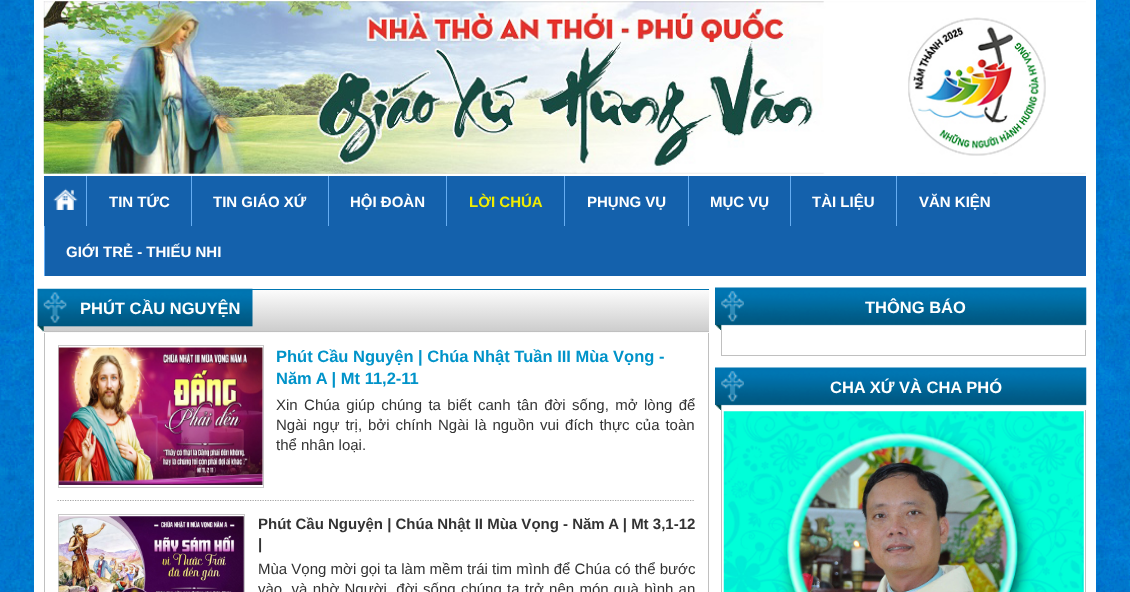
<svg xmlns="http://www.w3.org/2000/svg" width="1130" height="592">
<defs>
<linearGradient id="g1" gradientUnits="userSpaceOnUse" x1="376" y1="290" x2="376" y2="331"><stop offset="0" stop-color="#fcfcfc"/><stop offset="1" stop-color="#cdcdcd"/></linearGradient>
<linearGradient id="g2" gradientUnits="userSpaceOnUse" x1="376" y1="331" x2="376" y2="373"><stop offset="0" stop-color="#fcfcfc"/><stop offset="1" stop-color="#cdcdcd"/></linearGradient>
</defs>
<rect width="100%" height="100%" fill="#fff"/>
<image x="0" y="0" width="1130" height="592" href="media/1.png"/>
<rect x="34" width="1062" height="592" fill="#fff"/>
<image x="43" y="1" width="1043" height="173" href="media/2.png"/>
<rect x="44" y="176" width="1042" height="100" fill="#1461ac"/>
<image x="53" y="188" width="25" height="22" href="media/3.png"/>
<rect x="86" y="176" width="1" height="50" fill="#66adf2"/>
<text x="109" y="207" style="font-family:Liberation Sans;font-size:15px;font-weight:bold;fill:#fff">TIN TỨC</text>
<rect x="191" y="176" width="1" height="50" fill="#66adf2"/>
<text x="213" y="207" style="font-family:Liberation Sans;font-size:15px;font-weight:bold;fill:#fff">TIN GIÁO XỨ</text>
<rect x="328" y="176" width="1" height="50" fill="#66adf2"/>
<text x="350" y="207" style="font-family:Liberation Sans;font-size:15px;font-weight:bold;fill:#fff">HỘI ĐOÀN</text>
<rect x="446" y="176" width="1" height="50" fill="#66adf2"/>
<text x="469" y="207" style="font-family:Liberation Sans;font-size:15px;font-weight:bold;fill:#efec02">LỜI CHÚA</text>
<rect x="564" y="176" width="1" height="50" fill="#66adf2"/>
<text x="587" y="207" style="font-family:Liberation Sans;font-size:15px;font-weight:bold;fill:#fff">PHỤNG VỤ</text>
<rect x="688" y="176" width="1" height="50" fill="#66adf2"/>
<text x="710" y="207" style="font-family:Liberation Sans;font-size:15px;font-weight:bold;fill:#fff">MỤC VỤ</text>
<rect x="790" y="176" width="1" height="50" fill="#66adf2"/>
<text x="812" y="207" style="font-family:Liberation Sans;font-size:15px;font-weight:bold;fill:#fff">TÀI LIỆU</text>
<rect x="896" y="176" width="1" height="50" fill="#66adf2"/>
<text x="919" y="207" style="font-family:Liberation Sans;font-size:15px;font-weight:bold;fill:#fff">VĂN KIỆN</text>
<rect x="44" y="226" width="1" height="50" fill="#66adf2"/>
<text x="66" y="257" style="font-family:Liberation Sans;font-size:15px;font-weight:bold;fill:#fff">GIỚI TRẺ - THIẾU NHI</text>
<rect x="44" y="290" width="665" height="41" fill="url(#g1)"/>
<rect x="44" y="332" width="665" height="1" fill="url(#g2)"/>
<rect x="252" y="289" width="457" height="1" fill="#0076b2"/>
<rect x="44" y="331" width="665" height="1" fill="#c0c0c0"/>
<image x="37" y="288" width="216" height="44" href="media/4.png"/>
<text x="80" y="314" style="font-family:Liberation Sans;font-size:16.5px;font-weight:bold;fill:#fff">PHÚT CẦU NGUYỆN</text>
<rect x="708" y="333" width="1" height="259" fill="#c0c0c0"/>
<rect x="44" y="333" width="1" height="259" fill="#c0c0c0"/>
<path d="M57.5 500.5h637.5" fill="none" stroke="#a5a5a5" stroke-width="1.2" stroke-dasharray="1.25 1.25"/>
<rect x="58.5" y="345.5" width="205" height="142" fill="none" stroke="#cacaca"/>
<image x="58" y="347" width="205" height="138" href="media/5.png"/>
<text x="276" y="362" style="font-family:Liberation Sans;font-size:16.5px;font-weight:bold;fill:#0093c9">Phút Cầu Nguyện | Chúa Nhật Tuần III Mùa Vọng -</text>
<text x="276" y="384" style="font-family:Liberation Sans;font-size:16.5px;font-weight:bold;fill:#0093c9">Năm A | Mt 11,2-11</text>
<text x="276" y="410" word-spacing="2.25" style="font-family:Liberation Sans;font-size:15px;fill:#333">Xin Chúa giúp chúng ta biết canh tân đời sống, mở lòng để</text>
<text x="276" y="430" word-spacing="1.75" style="font-family:Liberation Sans;font-size:15px;fill:#333">Ngài ngự trị, bởi chính Ngài là nguồn vui đích thực của toàn</text>
<text x="276" y="450" style="font-family:Liberation Sans;font-size:15px;fill:#333">thể nhân loại.</text>
<rect x="58.5" y="514.5" width="186" height="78" fill="none" stroke="#cacaca"/>
<image x="58" y="516" width="186" height="76" href="media/6.png"/>
<text x="258" y="529" style="font-family:Liberation Sans;font-size:15px;font-weight:bold;fill:#333">Phút Cầu Nguyện | Chúa Nhật II Mùa Vọng - Năm A | Mt 3,1-12</text>
<text x="258" y="549" style="font-family:Liberation Sans;font-size:15px;font-weight:bold;fill:#333">|</text>
<text x="258" y="574" style="font-family:Liberation Sans;font-size:15px;fill:#333">Mùa Vọng mời gọi ta làm mềm trái tim mình để Chúa có thể bước</text>
<text x="258" y="594" word-spacing="1.1" style="font-family:Liberation Sans;font-size:15px;fill:#333">vào, và nhờ Người, đời sống chúng ta trở nên món quà bình an</text>
<image x="715" y="287" width="372" height="43" href="media/7.png"/>
<text x="865" y="313" style="font-family:Liberation Sans;font-size:16.5px;font-weight:bold;fill:#fff">THÔNG BÁO</text>
<rect x="1085" y="330" width="1" height="26" fill="#c0c0c0"/>
<rect x="721" y="355" width="365" height="1" fill="#c0c0c0"/>
<rect x="721" y="330" width="1" height="26" fill="#c0c0c0"/>
<image x="715" y="367" width="372" height="43" href="media/8.png"/>
<text x="830" y="393" style="font-family:Liberation Sans;font-size:16.5px;font-weight:bold;fill:#fff">CHA XỨ VÀ CHA PHÓ</text>
<rect x="1085" y="410" width="1" height="182" fill="#c0c0c0"/>
<rect x="721" y="410" width="1" height="182" fill="#c0c0c0"/>
<image x="723" y="411" width="361" height="181" href="media/9.png"/>
</svg>
